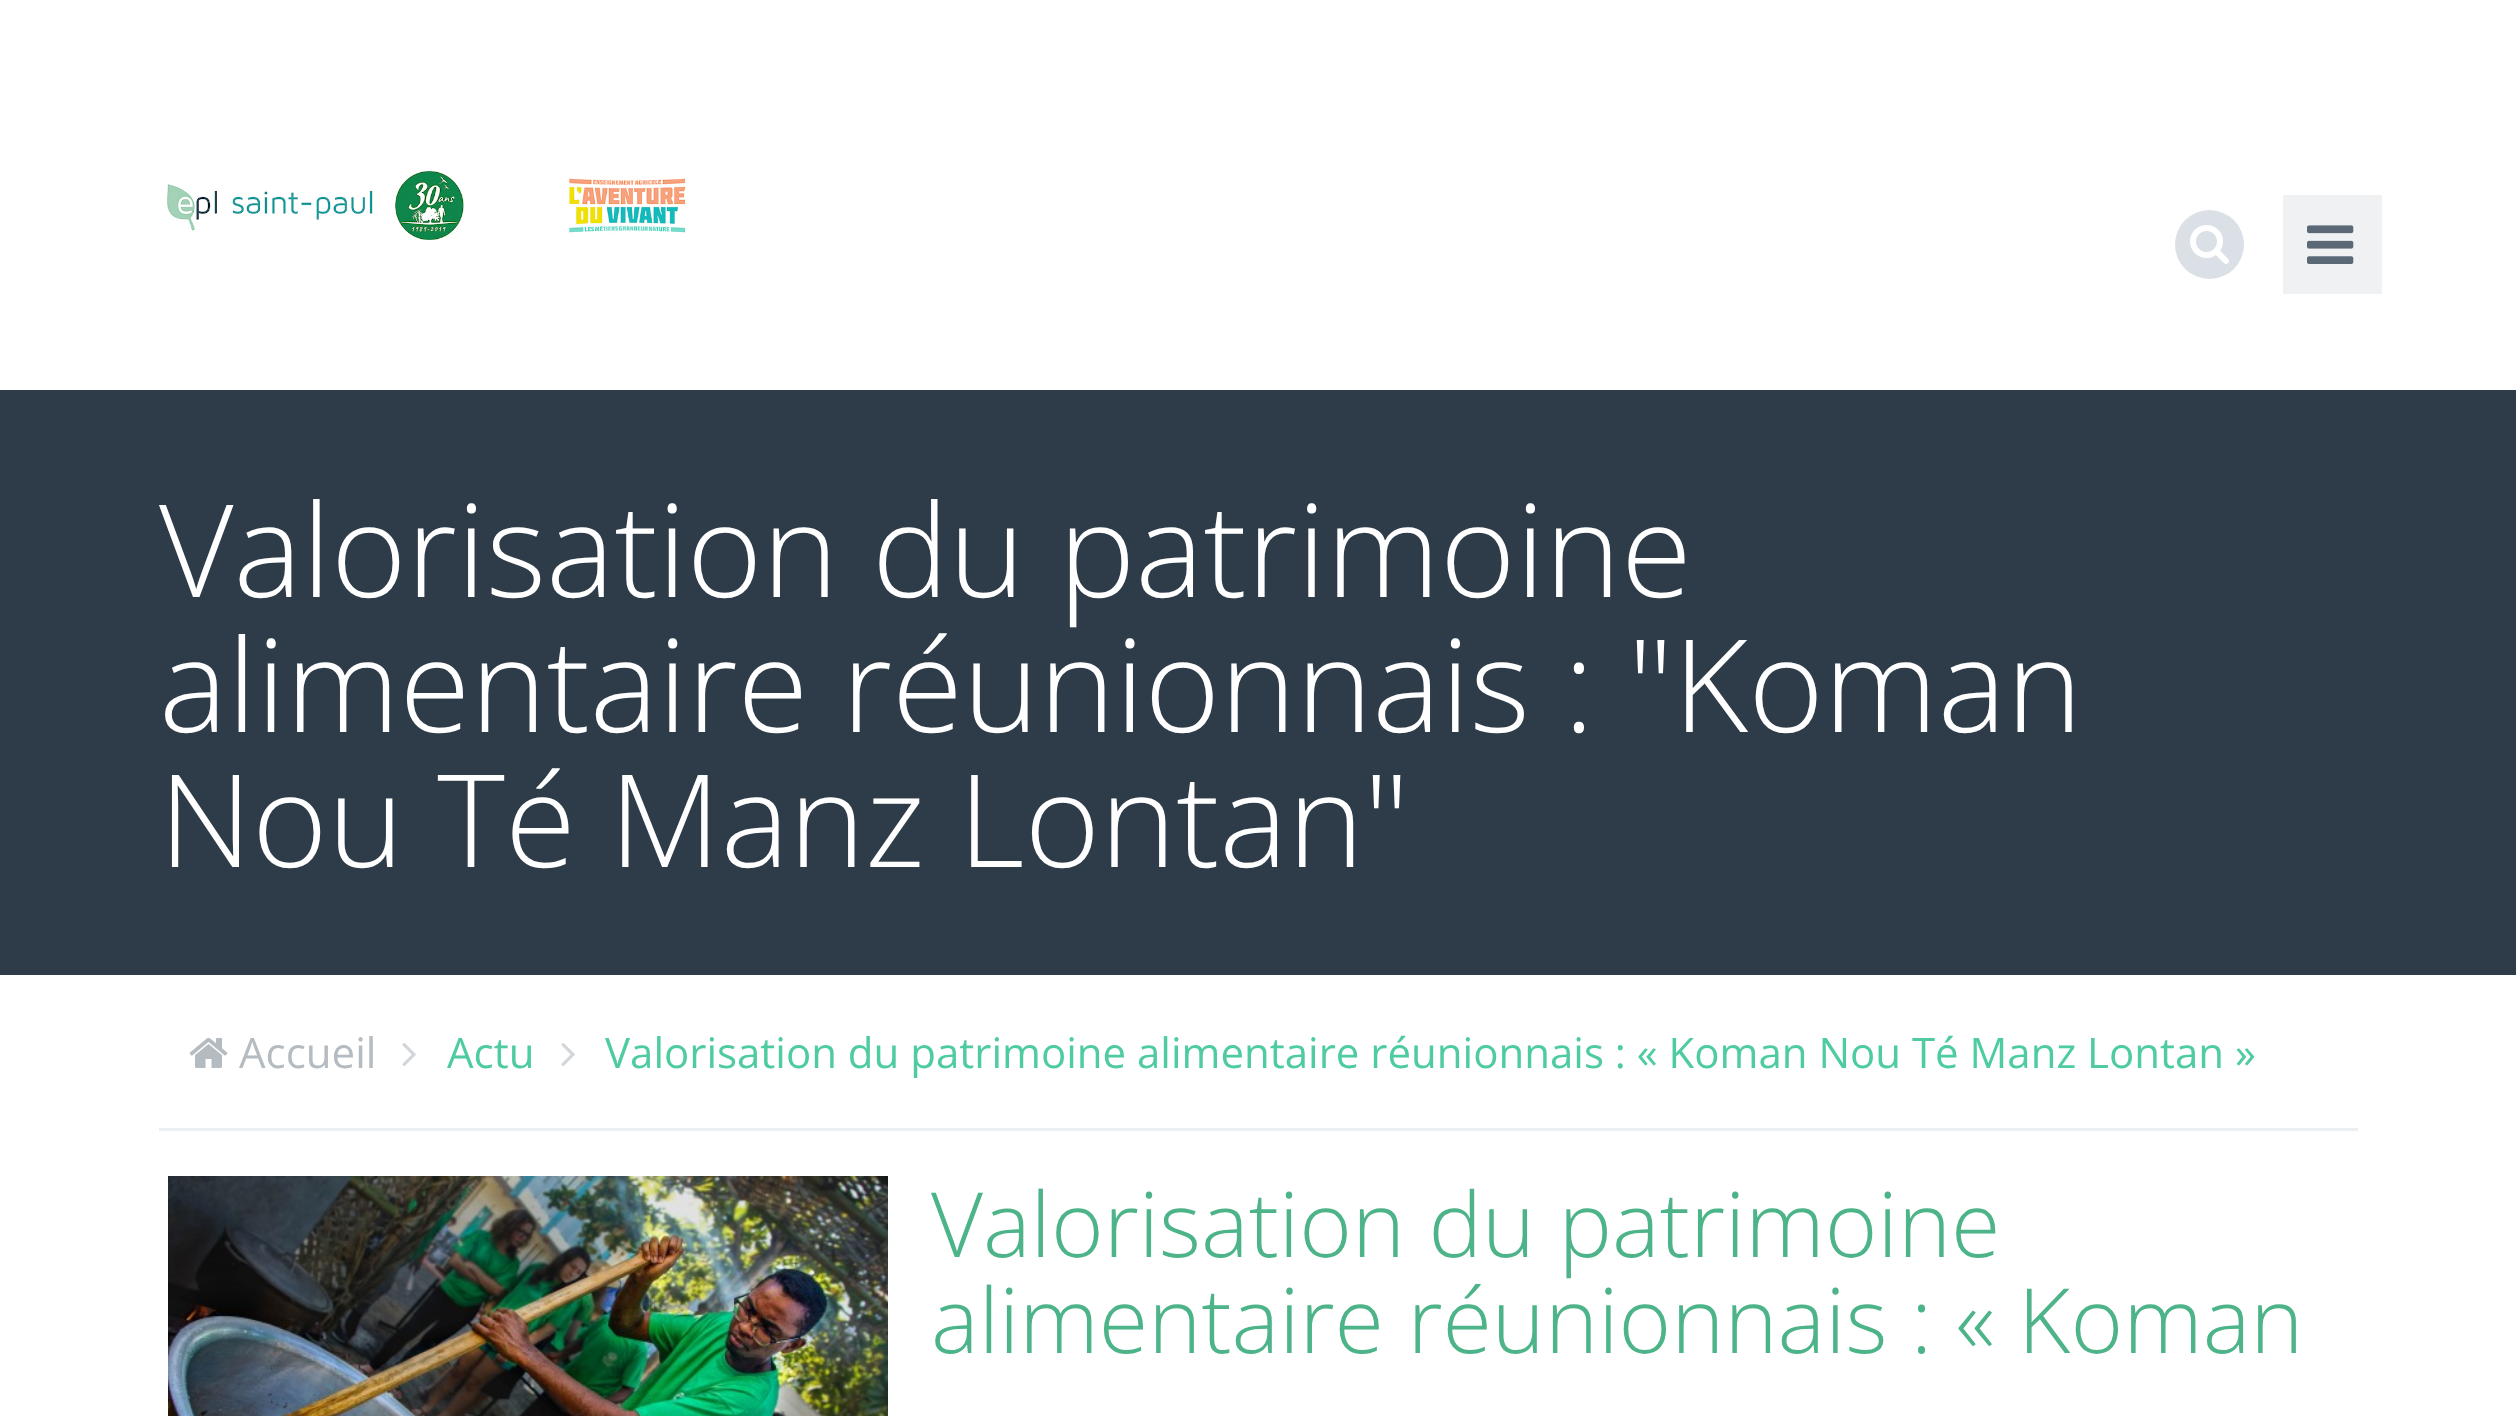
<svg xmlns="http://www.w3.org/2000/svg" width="2516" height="1416">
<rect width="100%" height="100%" fill="#fff"/>
<image x="167" y="171" width="519" height="69" href="media/1.png"/>
<circle cx="2209.5" cy="244.5" r="34.5" fill="#dae0e6"/>
<image x="2190" y="225" width="39" height="39" href="media/2.png"/>
<rect x="2283" y="195" width="99" height="99" fill="#eff1f2"/>
<image x="2307" y="225" width="47" height="39" href="media/3.png"/>
<rect y="390" width="2516" height="585" fill="#2e3b48"/>
<text x="159" y="597" style="font-family:Open Sans;font-size:129px;font-weight:300;fill:#fff">Valorisation du patrimoine</text>
<text x="159" y="732" style="font-family:Open Sans;font-size:129px;font-weight:300;fill:#fff">alimentaire réunionnais : "Koman</text>
<text x="159" y="867" style="font-family:Open Sans;font-size:129px;font-weight:300;fill:#fff">Nou Té Manz Lontan"</text>
<rect x="159" y="1128" width="2199" height="3" fill="#ebeff2"/>
<image x="189" y="1038" width="39" height="30" href="media/4.png"/>
<text x="239" y="1068" style="font-family:Open Sans;font-size:42px;fill:#b4bbc1">Accueil</text>
<image x="402" y="1043" width="14" height="23" href="media/5.png"/>
<text x="447" y="1068" style="font-family:Open Sans;font-size:42px;fill:#4ecc9f">Actu</text>
<image x="561" y="1043" width="14" height="23" href="media/5.png"/>
<text x="605" y="1068" style="font-family:Open Sans;font-size:42px;fill:#4ecc9f">Valorisation du patrimoine alimentaire réunionnais : « Koman Nou Té Manz Lontan »</text>
<image x="168" y="1176" width="720" height="240" href="media/6.png"/>
<text x="931" y="1257" style="font-family:Open Sans;font-size:90px;font-weight:300;fill:#4db388">Valorisation du patrimoine</text>
<text x="931" y="1353" style="font-family:Open Sans;font-size:90px;font-weight:300;fill:#4db388">alimentaire réunionnais : « Koman</text>
</svg>
